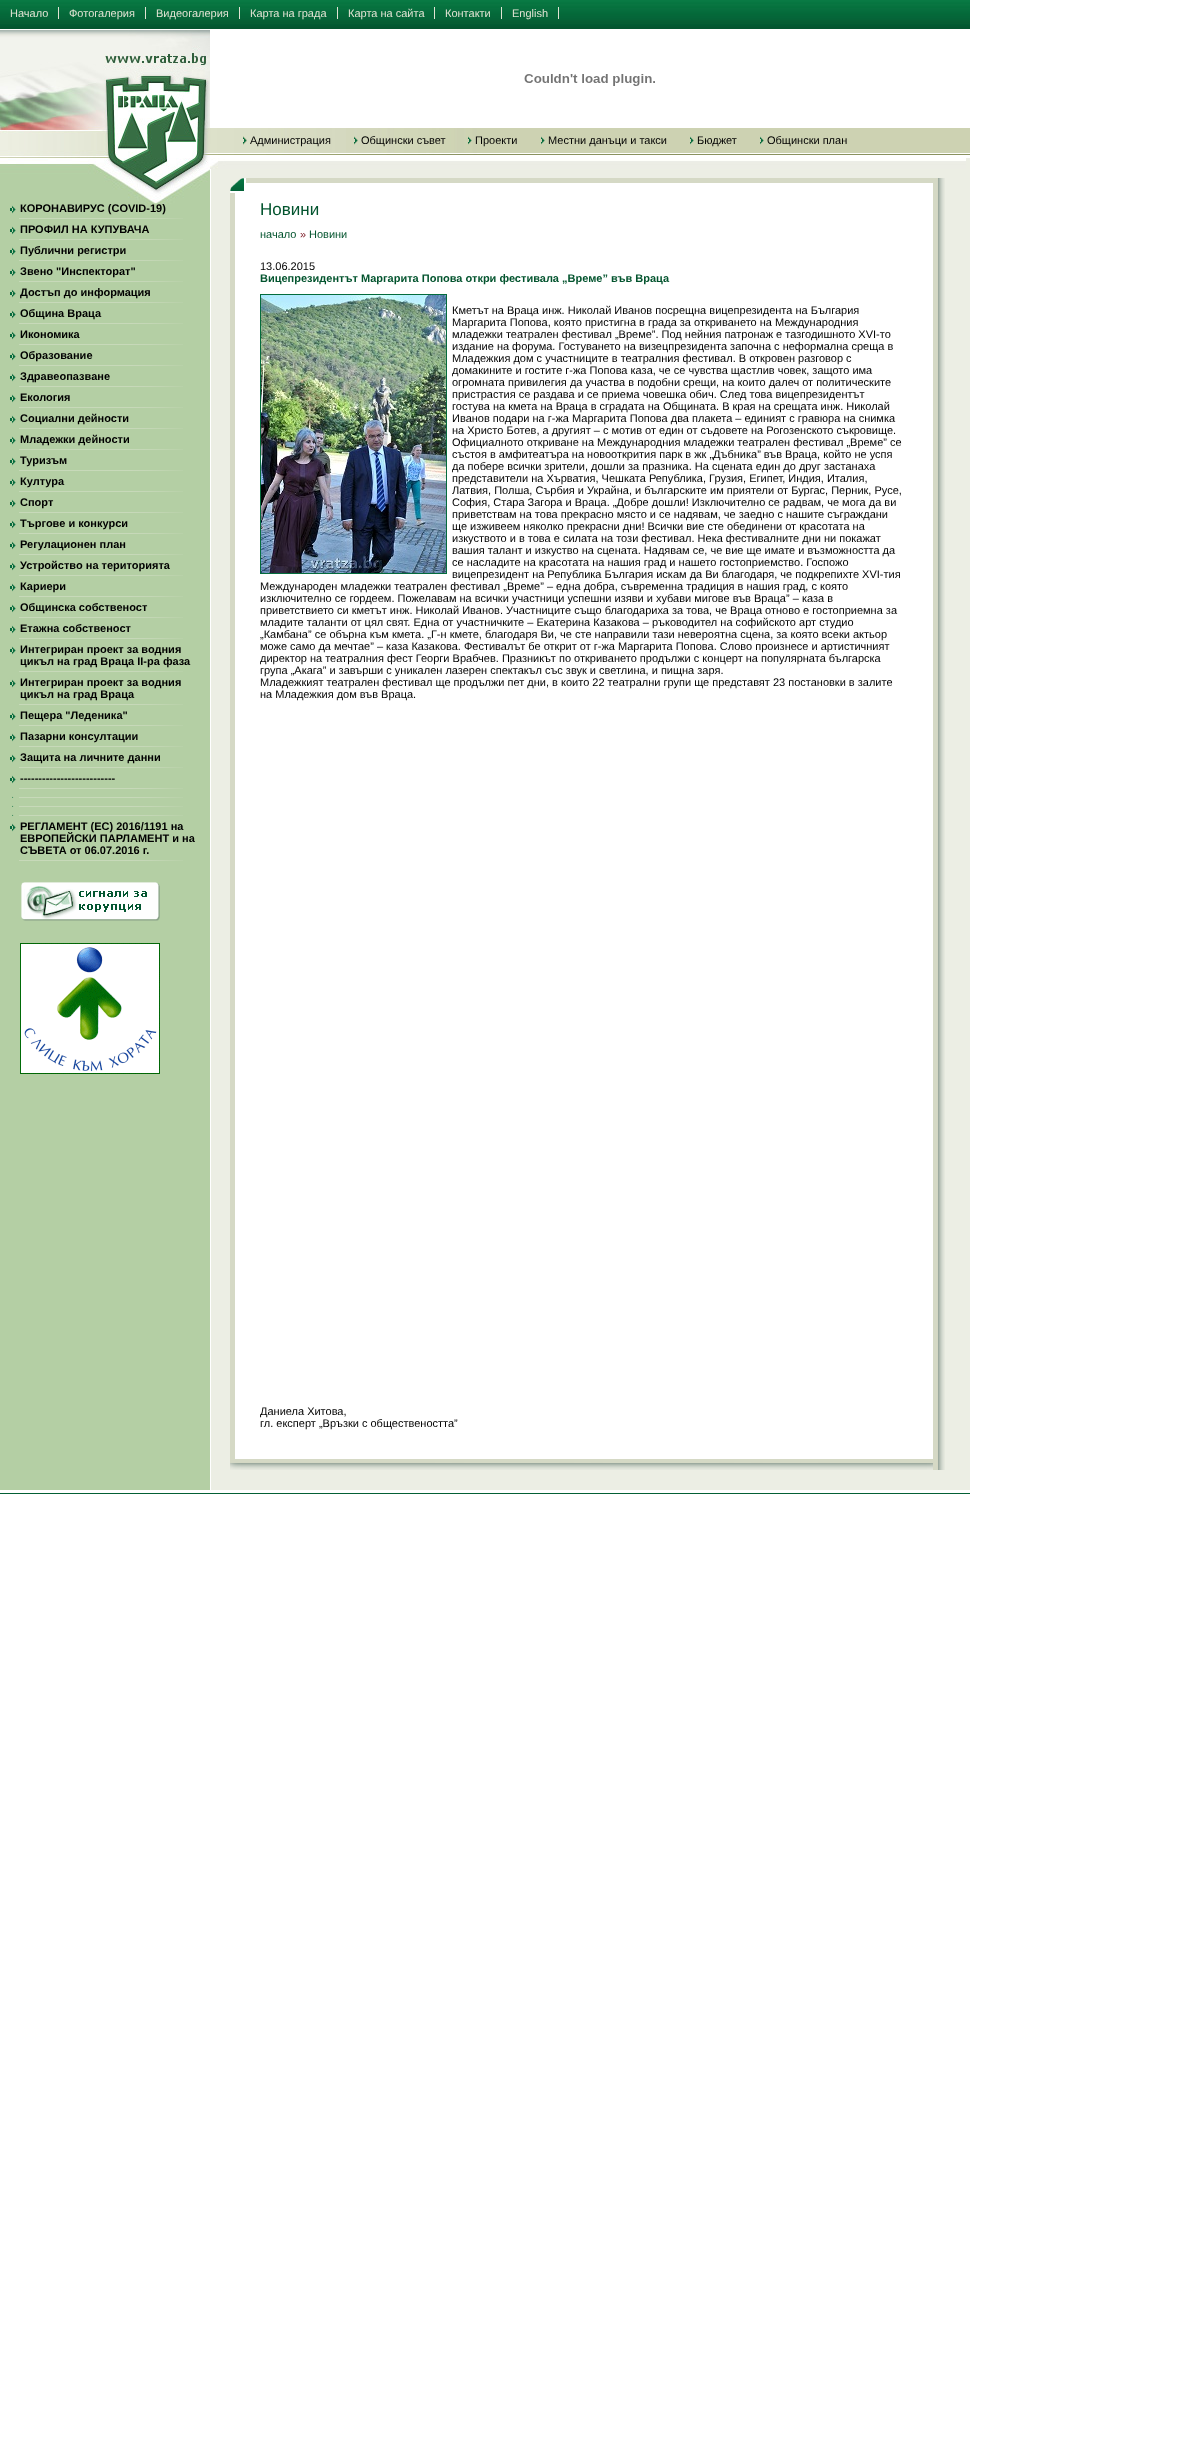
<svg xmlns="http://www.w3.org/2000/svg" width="1198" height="2456">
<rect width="100%" height="100%" fill="#fff"/>
<image x="0" y="0" width="970" height="29" href="media/1.png"/>
<text x="10" y="17" style="font-family:Liberation Sans;font-size:11px;fill:#e1e3d3">Начало</text>
<rect x="58" y="7" width="1" height="12" fill="#e1e3d3"/>
<text x="69" y="17" style="font-family:Liberation Sans;font-size:11px;fill:#e1e3d3">Фотогалерия</text>
<rect x="145" y="7" width="1" height="12" fill="#e1e3d3"/>
<text x="156" y="17" style="font-family:Liberation Sans;font-size:11px;fill:#e1e3d3">Видеогалерия</text>
<rect x="239" y="7" width="1" height="12" fill="#e1e3d3"/>
<text x="250" y="17" style="font-family:Liberation Sans;font-size:11px;fill:#e1e3d3">Карта на града</text>
<rect x="337" y="7" width="1" height="12" fill="#e1e3d3"/>
<text x="348" y="17" style="font-family:Liberation Sans;font-size:11px;fill:#e1e3d3">Карта на сайта</text>
<rect x="434" y="7" width="1" height="12" fill="#e1e3d3"/>
<text x="445" y="17" style="font-family:Liberation Sans;font-size:11px;fill:#e1e3d3">Контакти</text>
<rect x="501" y="7" width="1" height="12" fill="#e1e3d3"/>
<text x="512" y="17" style="font-family:Liberation Sans;font-size:11px;fill:#e1e3d3">English</text>
<rect x="558" y="7" width="1" height="12" fill="#e1e3d3"/>
<image x="0" y="30" width="210" height="128" href="media/2.png"/>
<image x="210" y="128" width="760" height="27" href="media/3.png"/>
<image x="524" y="74" width="131" height="12" href="media/4.png"/>
<image x="243" y="136" width="4" height="9" href="media/5.png"/>
<text x="250" y="144" style="font-family:Liberation Sans;font-size:11px;fill:#000">Администрация</text>
<image x="354" y="136" width="4" height="9" href="media/6.png"/>
<text x="361" y="144" style="font-family:Liberation Sans;font-size:11px;fill:#000">Общински съвет</text>
<image x="468" y="136" width="4" height="9" href="media/7.png"/>
<text x="475" y="144" style="font-family:Liberation Sans;font-size:11px;fill:#000">Проекти</text>
<image x="541" y="136" width="4" height="9" href="media/8.png"/>
<text x="548" y="144" style="font-family:Liberation Sans;font-size:11px;fill:#000">Местни данъци и такси</text>
<image x="690" y="136" width="4" height="9" href="media/8.png"/>
<text x="697" y="144" style="font-family:Liberation Sans;font-size:11px;fill:#000">Бюджет</text>
<image x="760" y="136" width="4" height="9" href="media/8.png"/>
<text x="767" y="144" style="font-family:Liberation Sans;font-size:11px;fill:#000">Общински план</text>
<image x="0" y="158" width="970" height="1332" href="media/9.png"/>
<image x="0" y="158" width="210" height="46" href="media/10.png"/>
<image x="19" y="218" width="164" height="1" href="media/11.png"/>
<image x="10" y="205" width="6" height="9" href="media/12.png"/>
<text x="20" y="212" style="font-family:Liberation Sans;font-size:11px;font-weight:bold;fill:#000">КОРОНАВИРУС (COVID-19)</text>
<image x="19" y="239" width="164" height="1" href="media/11.png"/>
<image x="10" y="226" width="6" height="9" href="media/12.png"/>
<text x="20" y="233" style="font-family:Liberation Sans;font-size:11px;font-weight:bold;fill:#000">ПРОФИЛ НА КУПУВАЧА</text>
<image x="19" y="260" width="164" height="1" href="media/11.png"/>
<image x="10" y="247" width="6" height="9" href="media/12.png"/>
<text x="20" y="254" style="font-family:Liberation Sans;font-size:11px;font-weight:bold;fill:#000">Публични регистри</text>
<image x="19" y="281" width="164" height="1" href="media/11.png"/>
<image x="10" y="268" width="6" height="9" href="media/12.png"/>
<text x="20" y="275" style="font-family:Liberation Sans;font-size:11px;font-weight:bold;fill:#000">Звено "Инспекторат"</text>
<image x="19" y="302" width="164" height="1" href="media/11.png"/>
<image x="10" y="289" width="6" height="9" href="media/12.png"/>
<text x="20" y="296" style="font-family:Liberation Sans;font-size:11px;font-weight:bold;fill:#000">Достъп до информация</text>
<image x="19" y="323" width="164" height="1" href="media/11.png"/>
<image x="10" y="310" width="6" height="9" href="media/12.png"/>
<text x="20" y="317" style="font-family:Liberation Sans;font-size:11px;font-weight:bold;fill:#000">Община Враца</text>
<image x="19" y="344" width="164" height="1" href="media/11.png"/>
<image x="10" y="331" width="6" height="9" href="media/12.png"/>
<text x="20" y="338" style="font-family:Liberation Sans;font-size:11px;font-weight:bold;fill:#000">Икономика</text>
<image x="19" y="365" width="164" height="1" href="media/11.png"/>
<image x="10" y="352" width="6" height="9" href="media/12.png"/>
<text x="20" y="359" style="font-family:Liberation Sans;font-size:11px;font-weight:bold;fill:#000">Образование</text>
<image x="19" y="386" width="164" height="1" href="media/11.png"/>
<image x="10" y="373" width="6" height="9" href="media/12.png"/>
<text x="20" y="380" style="font-family:Liberation Sans;font-size:11px;font-weight:bold;fill:#000">Здравеопазване</text>
<image x="19" y="407" width="164" height="1" href="media/11.png"/>
<image x="10" y="394" width="6" height="9" href="media/12.png"/>
<text x="20" y="401" style="font-family:Liberation Sans;font-size:11px;font-weight:bold;fill:#000">Екология</text>
<image x="19" y="428" width="164" height="1" href="media/11.png"/>
<image x="10" y="415" width="6" height="9" href="media/12.png"/>
<text x="20" y="422" style="font-family:Liberation Sans;font-size:11px;font-weight:bold;fill:#000">Социални дейности</text>
<image x="19" y="449" width="164" height="1" href="media/11.png"/>
<image x="10" y="436" width="6" height="9" href="media/12.png"/>
<text x="20" y="443" style="font-family:Liberation Sans;font-size:11px;font-weight:bold;fill:#000">Младежки дейности</text>
<image x="19" y="470" width="164" height="1" href="media/11.png"/>
<image x="10" y="457" width="6" height="9" href="media/12.png"/>
<text x="20" y="464" style="font-family:Liberation Sans;font-size:11px;font-weight:bold;fill:#000">Туризъм</text>
<image x="19" y="491" width="164" height="1" href="media/11.png"/>
<image x="10" y="478" width="6" height="9" href="media/12.png"/>
<text x="20" y="485" style="font-family:Liberation Sans;font-size:11px;font-weight:bold;fill:#000">Култура</text>
<image x="19" y="512" width="164" height="1" href="media/11.png"/>
<image x="10" y="499" width="6" height="9" href="media/12.png"/>
<text x="20" y="506" style="font-family:Liberation Sans;font-size:11px;font-weight:bold;fill:#000">Спорт</text>
<image x="19" y="533" width="164" height="1" href="media/11.png"/>
<image x="10" y="520" width="6" height="9" href="media/12.png"/>
<text x="20" y="527" style="font-family:Liberation Sans;font-size:11px;font-weight:bold;fill:#000">Търгове и конкурси</text>
<image x="19" y="554" width="164" height="1" href="media/11.png"/>
<image x="10" y="541" width="6" height="9" href="media/12.png"/>
<text x="20" y="548" style="font-family:Liberation Sans;font-size:11px;font-weight:bold;fill:#000">Регулационен план</text>
<image x="19" y="575" width="164" height="1" href="media/11.png"/>
<image x="10" y="562" width="6" height="9" href="media/12.png"/>
<text x="20" y="569" style="font-family:Liberation Sans;font-size:11px;font-weight:bold;fill:#000">Устройство на територията</text>
<image x="19" y="596" width="164" height="1" href="media/11.png"/>
<image x="10" y="583" width="6" height="9" href="media/12.png"/>
<text x="20" y="590" style="font-family:Liberation Sans;font-size:11px;font-weight:bold;fill:#000">Кариери</text>
<image x="19" y="617" width="164" height="1" href="media/11.png"/>
<image x="10" y="604" width="6" height="9" href="media/12.png"/>
<text x="20" y="611" style="font-family:Liberation Sans;font-size:11px;font-weight:bold;fill:#000">Общинска собственост</text>
<image x="19" y="638" width="164" height="1" href="media/11.png"/>
<image x="10" y="625" width="6" height="9" href="media/12.png"/>
<text x="20" y="632" style="font-family:Liberation Sans;font-size:11px;font-weight:bold;fill:#000">Етажна собственост</text>
<image x="19" y="671" width="164" height="1" href="media/11.png"/>
<image x="10" y="646" width="6" height="9" href="media/12.png"/>
<text x="20" y="653" style="font-family:Liberation Sans;font-size:11px;font-weight:bold;fill:#000">Интегриран проект за водния</text>
<text x="20" y="665" style="font-family:Liberation Sans;font-size:11px;font-weight:bold;fill:#000">цикъл на град Враца II-ра фаза</text>
<image x="19" y="704" width="164" height="1" href="media/11.png"/>
<image x="10" y="679" width="6" height="9" href="media/12.png"/>
<text x="20" y="686" style="font-family:Liberation Sans;font-size:11px;font-weight:bold;fill:#000">Интегриран проект за водния</text>
<text x="20" y="698" style="font-family:Liberation Sans;font-size:11px;font-weight:bold;fill:#000">цикъл на град Враца</text>
<image x="19" y="725" width="164" height="1" href="media/11.png"/>
<image x="10" y="712" width="6" height="9" href="media/12.png"/>
<text x="20" y="719" style="font-family:Liberation Sans;font-size:11px;font-weight:bold;fill:#000">Пещера "Леденика"</text>
<image x="19" y="746" width="164" height="1" href="media/11.png"/>
<image x="10" y="733" width="6" height="9" href="media/12.png"/>
<text x="20" y="740" style="font-family:Liberation Sans;font-size:11px;font-weight:bold;fill:#000">Пазарни консултации</text>
<image x="19" y="767" width="164" height="1" href="media/11.png"/>
<image x="10" y="754" width="6" height="9" href="media/12.png"/>
<text x="20" y="761" style="font-family:Liberation Sans;font-size:11px;font-weight:bold;fill:#000">Защита на личните данни</text>
<image x="19" y="788" width="164" height="1" href="media/11.png"/>
<image x="10" y="775" width="6" height="9" href="media/12.png"/>
<text x="20" y="782" style="font-family:Liberation Sans;font-size:11px;font-weight:bold;fill:#000">--------------------------</text>
<image x="19" y="797" width="164" height="1" href="media/11.png"/>
<image x="12" y="796" width="2" height="2" href="media/13.png"/>
<image x="19" y="806" width="164" height="1" href="media/11.png"/>
<image x="12" y="805" width="2" height="2" href="media/13.png"/>
<image x="19" y="815" width="164" height="1" href="media/11.png"/>
<image x="12" y="814" width="2" height="2" href="media/13.png"/>
<image x="19" y="860" width="164" height="1" href="media/11.png"/>
<image x="10" y="823" width="6" height="9" href="media/12.png"/>
<text x="20" y="830" style="font-family:Liberation Sans;font-size:11px;font-weight:bold;fill:#000">РЕГЛАМЕНТ (ЕС) 2016/1191 на</text>
<text x="20" y="842" style="font-family:Liberation Sans;font-size:11px;font-weight:bold;fill:#000">ЕВРОПЕЙСКИ ПАРЛАМЕНТ и на</text>
<text x="20" y="854" style="font-family:Liberation Sans;font-size:11px;font-weight:bold;fill:#000">СЪВЕТА от 06.07.2016 г.</text>
<image x="21" y="882" width="139" height="39" href="media/14.png"/>
<image x="20" y="943" width="140" height="131" href="media/15.png"/>
<image x="210" y="158" width="756" height="11" href="media/16.png"/>
<image x="230" y="178" width="715" height="1292" href="media/17.png"/>
<image x="230" y="178" width="703" height="15" href="media/18.png"/>
<text x="260" y="215" style="font-family:Liberation Sans;font-size:17px;fill:#03542e">Новини</text>
<text x="260" y="238" style="font-family:Liberation Sans;font-size:11px;fill:#03542e">начало</text>
<text x="300" y="238" style="font-family:Liberation Sans;font-size:11px;fill:#7d1d28">»</text>
<text x="309" y="238" style="font-family:Liberation Sans;font-size:11px;fill:#03542e">Новини</text>
<text x="260" y="270" style="font-family:Liberation Sans;font-size:11px;fill:#000">13.06.2015</text>
<text x="260" y="282" style="font-family:Liberation Sans;font-size:11px;font-weight:bold;fill:#03542e">Вицепрезидентът Маргарита Попова откри фестивала „Време” във Враца</text>
<rect x="260.5" y="294.5" width="186" height="279" fill="none" stroke="#046c3d"/>
<image x="261" y="295" width="185" height="278" href="media/19.png"/>
<text x="452" y="314" style="font-family:Liberation Sans;font-size:11px;fill:#000">Кметът на Враца инж. Николай Иванов посрещна вицепрезидента на България</text>
<text x="452" y="326" style="font-family:Liberation Sans;font-size:11px;fill:#000">Маргарита Попова, която пристигна в града за откриването на Международния</text>
<text x="452" y="338" style="font-family:Liberation Sans;font-size:11px;fill:#000">младежки театрален фестивал „Време”. Под нейния патронаж е тазгодишното XVІ-то</text>
<text x="452" y="350" style="font-family:Liberation Sans;font-size:11px;fill:#000">издание на форума. Гостуването на визецпрезидента започна с неформална среща в</text>
<text x="452" y="362" style="font-family:Liberation Sans;font-size:11px;fill:#000">Младежкия дом с участниците в театралния фестивал. В откровен разговор с</text>
<text x="452" y="374" style="font-family:Liberation Sans;font-size:11px;fill:#000">домакините и гостите г-жа Попова каза, че се чувства щастлив човек, защото има</text>
<text x="452" y="386" style="font-family:Liberation Sans;font-size:11px;fill:#000">огромната привилегия да участва в подобни срещи, на които далеч от политическите</text>
<text x="452" y="398" style="font-family:Liberation Sans;font-size:11px;fill:#000">пристрастия се раздава и се приема човешка обич. След това вицепрезидентът</text>
<text x="452" y="410" style="font-family:Liberation Sans;font-size:11px;fill:#000">гостува на кмета на Враца в сградата на Общината. В края на срещата инж. Николай</text>
<text x="452" y="422" style="font-family:Liberation Sans;font-size:11px;fill:#000">Иванов подари на г-жа Маргарита Попова два плакета – единият с гравюра на снимка</text>
<text x="452" y="434" style="font-family:Liberation Sans;font-size:11px;fill:#000">на Христо Ботев, а другият – с мотив от един от съдовете на Рогозенското съкровище.</text>
<text x="452" y="446" style="font-family:Liberation Sans;font-size:11px;fill:#000">Официалното откриване на Международния младежки театрален фестивал „Време” се</text>
<text x="452" y="458" style="font-family:Liberation Sans;font-size:11px;fill:#000">състоя в амфитеатъра на новооткрития парк в жк „Дъбника” във Враца, който не успя</text>
<text x="452" y="470" style="font-family:Liberation Sans;font-size:11px;fill:#000">да побере всички зрители, дошли за празника. На сцената един до друг застанаха</text>
<text x="452" y="482" style="font-family:Liberation Sans;font-size:11px;fill:#000">представители на Хърватия, Чешката Република, Грузия, Египет, Индия, Италия,</text>
<text x="452" y="494" style="font-family:Liberation Sans;font-size:11px;fill:#000">Латвия, Полша, Сърбия и Украйна, и българските им приятели от Бургас, Перник, Русе,</text>
<text x="452" y="506" style="font-family:Liberation Sans;font-size:11px;fill:#000">София, Стара Загора и Враца. „Добре дошли! Изключително се радвам, че мога да ви</text>
<text x="452" y="518" style="font-family:Liberation Sans;font-size:11px;fill:#000">приветствам на това прекрасно място и се надявам, че заедно с нашите съграждани</text>
<text x="452" y="530" style="font-family:Liberation Sans;font-size:11px;fill:#000">ще изживеем няколко прекрасни дни! Всички вие сте обединени от красотата на</text>
<text x="452" y="542" style="font-family:Liberation Sans;font-size:11px;fill:#000">изкуството и в това е силата на този фестивал. Нека фестивалните дни ни покажат</text>
<text x="452" y="554" style="font-family:Liberation Sans;font-size:11px;fill:#000">вашия талант и изкуство на сцената. Надявам се, че вие ще имате и възможността да</text>
<text x="452" y="566" style="font-family:Liberation Sans;font-size:11px;fill:#000">се насладите на красотата на нашия град и нашето гостоприемство. Госпожо</text>
<text x="452" y="578" style="font-family:Liberation Sans;font-size:11px;fill:#000">вицепрезидент на Република България искам да Ви благодаря, че подкрепихте XVІ-тия</text>
<text x="260" y="590" style="font-family:Liberation Sans;font-size:11px;fill:#000">Международен младежки театрален фестивал „Време” – една добра, съвременна традиция в нашия град, с която</text>
<text x="260" y="602" style="font-family:Liberation Sans;font-size:11px;fill:#000">изключително се гордеем. Пожелавам на всички участници успешни изяви и хубави мигове във Враца” – каза в</text>
<text x="260" y="614" style="font-family:Liberation Sans;font-size:11px;fill:#000">приветствието си кметът инж. Николай Иванов. Участниците също благодариха за това, че Враца отново е гостоприемна за</text>
<text x="260" y="626" style="font-family:Liberation Sans;font-size:11px;fill:#000">младите таланти от цял свят. Една от участничките – Екатерина Казакова – ръководител на софийското арт студио</text>
<text x="260" y="638" style="font-family:Liberation Sans;font-size:11px;fill:#000">„Камбана” се обърна към кмета. „Г-н кмете, благодаря Ви, че сте направили тази невероятна сцена, за която всеки актьор</text>
<text x="260" y="650" style="font-family:Liberation Sans;font-size:11px;fill:#000">може само да мечтае” – каза Казакова. Фестивалът бе открит от г-жа Маргарита Попова. Слово произнесе и артистичният</text>
<text x="260" y="662" style="font-family:Liberation Sans;font-size:11px;fill:#000">директор на театралния фест Георги Врабчев. Празникът по откриването продължи с концерт на популярната българска</text>
<text x="260" y="674" style="font-family:Liberation Sans;font-size:11px;fill:#000">група „Акага” и завърши с уникален лазерен спектакъл със звук и светлина, и пищна заря.</text>
<text x="260" y="686" style="font-family:Liberation Sans;font-size:11px;fill:#000">Младежкият театрален фестивал ще продължи пет дни, в които 22 театрални групи ще представят 23 постановки в залите</text>
<text x="260" y="698" style="font-family:Liberation Sans;font-size:11px;fill:#000">на Младежкия дом във Враца.</text>
<text x="260" y="1415" style="font-family:Liberation Sans;font-size:11px;fill:#000">Даниела Хитова,</text>
<text x="260" y="1427" style="font-family:Liberation Sans;font-size:11px;fill:#000">гл. експерт „Връзки с обществеността”</text>
<image x="230" y="1459" width="703" height="11" href="media/20.png"/>
<rect y="1493" width="970" height="1" fill="#036035"/>
</svg>
